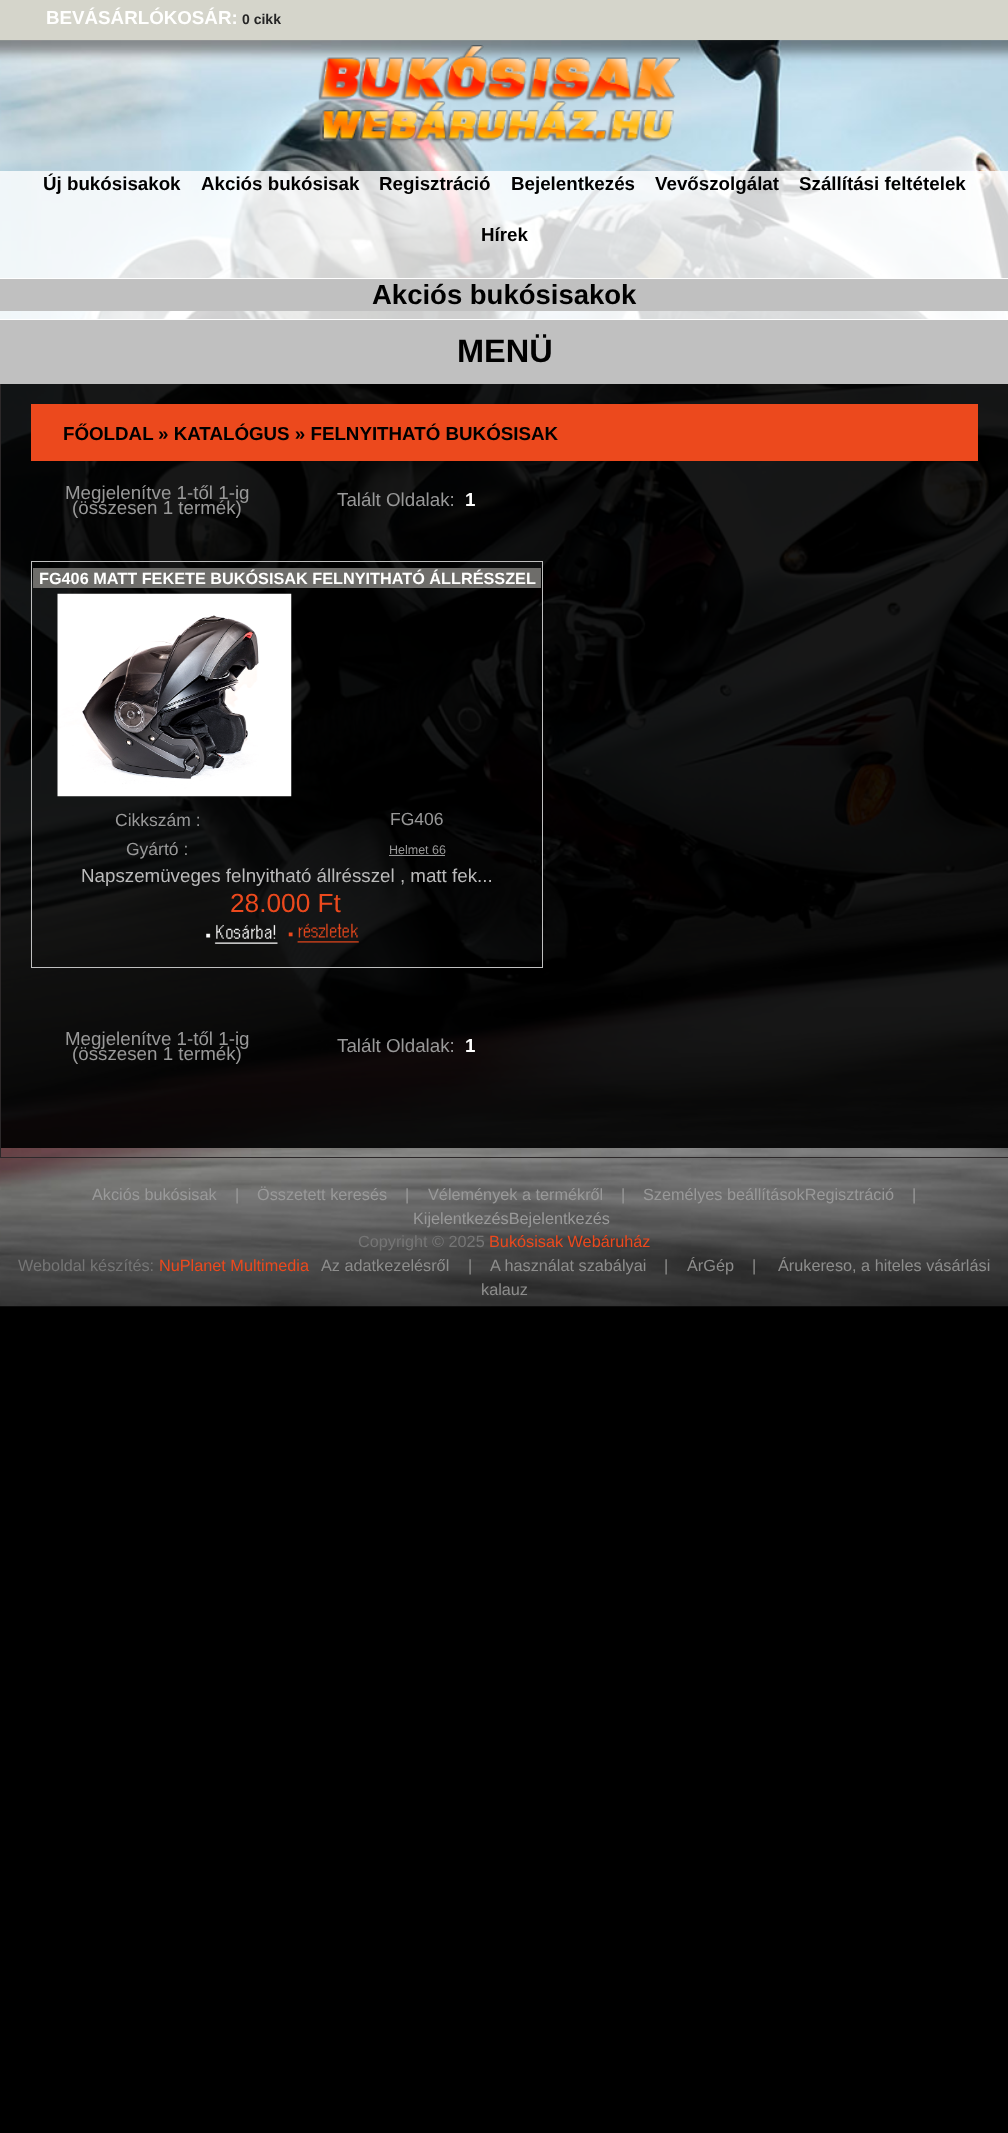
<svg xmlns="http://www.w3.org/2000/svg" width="1008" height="2133">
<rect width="100%" height="100%" fill="#000"/>
<image x="0" y="40" width="1008" height="1267" href="media/1.png"/>
<rect width="1008" height="40" fill="#d5d5cb"/>
<text x="46" y="24" style="font-family:Liberation Sans;font-size:18.75px;font-weight:bold;fill:#fffffe">BEVÁSÁRLÓKOSÁR:</text>
<text x="242" y="24" style="font-family:Liberation Sans;font-size:14px;font-weight:bold;fill:#252525">0 cikk</text>
<image x="318" y="45" width="363" height="98" href="media/2.png"/>
<rect y="171" width="1008" height="148" fill="#ffffffcf"/>
<text x="43" y="190" style="font-family:Liberation Sans;font-size:18.75px;font-weight:bold;fill:#000">Új bukósisakok</text>
<text x="201" y="190" style="font-family:Liberation Sans;font-size:18.75px;font-weight:bold;fill:#000">Akciós bukósisak</text>
<text x="379" y="190" style="font-family:Liberation Sans;font-size:18.75px;font-weight:bold;fill:#000">Regisztráció</text>
<text x="511" y="190" style="font-family:Liberation Sans;font-size:18.75px;font-weight:bold;fill:#000">Bejelentkezés</text>
<text x="655" y="190" style="font-family:Liberation Sans;font-size:18.75px;font-weight:bold;fill:#000">Vevőszolgálat</text>
<text x="799" y="190" style="font-family:Liberation Sans;font-size:18.75px;font-weight:bold;fill:#000">Szállítási feltételek</text>
<text x="481" y="241" style="font-family:Liberation Sans;font-size:18.75px;font-weight:bold;fill:#000">Hírek</text>
<rect y="279" width="1008" height="32" fill="#c0c0c0"/>
<rect y="278" width="1008" height="1" fill="#fff"/>
<text x="372" y="304" style="font-family:Liberation Sans;font-size:27.5px;font-weight:bold;fill:#000">Akciós bukósisakok</text>
<rect x="0.5" y="379.5" width="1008" height="778" fill="none" stroke="#2d292a"/>
<rect x="1" y="384" width="1007" height="764" fill="#000000e8"/>
<rect y="320" width="1008" height="64" fill="#c0c0c0"/>
<rect y="319" width="1008" height="1" fill="#fff"/>
<text x="457" y="362" style="font-family:Liberation Sans;font-size:32.5px;font-weight:bold;fill:#000">MENÜ</text>
<rect x="31" y="404" width="947" height="57" fill="#ec491d"/>
<text x="63" y="440" style="font-family:Liberation Sans;font-size:18.75px;font-weight:bold;fill:#000">FŐOLDAL</text>
<text x="158" y="440" style="font-family:Liberation Sans;font-size:18.75px;font-weight:bold;fill:#000">» KATALÓGUS » FELNYITHATÓ BUKÓSISAK</text>
<text x="65" y="499" style="font-family:Liberation Sans;font-size:18.75px;fill:#999">Megjelenítve 1-től 1-ig</text>
<text x="72" y="514" style="font-family:Liberation Sans;font-size:18.75px;fill:#999">(összesen 1 termék)</text>
<text x="337" y="506" style="font-family:Liberation Sans;font-size:18.75px;fill:#999">Talált Oldalak:</text>
<text x="465" y="506" style="font-family:Liberation Sans;font-size:18.75px;font-weight:bold;fill:#fffffe">1</text>
<rect x="31.5" y="561.5" width="511" height="406" fill="none" stroke="#c0c0c0"/>
<rect x="33" y="568" width="508" height="20" fill="#6e6d6a"/>
<text x="39" y="584" style="font-family:Liberation Sans;font-size:16.25px;font-weight:bold;fill:#fffffe">FG406 MATT FEKETE BUKÓSISAK FELNYITHATÓ ÁLLRÉSSZEL</text>
<image x="57" y="593" width="235" height="204" href="media/3.png"/>
<text x="115" y="826" style="font-family:Liberation Sans;font-size:17.5px;fill:#999">Cikkszám :</text>
<text x="390" y="825" style="font-family:Liberation Sans;font-size:17.5px;fill:#999">FG406</text>
<text x="126" y="855" style="font-family:Liberation Sans;font-size:17.5px;fill:#999">Gyártó :</text>
<text x="389" y="854" style="font-family:Liberation Sans;font-size:12.5px;fill:#999">Helmet 66</text>
<rect x="389" y="855" width="56" height="1" fill="#999"/>
<text x="81" y="882" style="font-family:Liberation Sans;font-size:18.75px;fill:#bbb">Napszemüveges felnyitható állrésszel , matt fek...</text>
<text x="230" y="912" style="font-family:Liberation Sans;font-size:26.25px;fill:#ec491d">28.000 Ft</text>
<image x="206" y="924" width="72" height="20" href="media/4.png"/>
<image x="288" y="923" width="71" height="20" href="media/5.png"/>
<text x="65" y="1045" style="font-family:Liberation Sans;font-size:18.75px;fill:#999">Megjelenítve 1-től 1-ig</text>
<text x="72" y="1060" style="font-family:Liberation Sans;font-size:18.75px;fill:#999">(összesen 1 termék)</text>
<text x="337" y="1052" style="font-family:Liberation Sans;font-size:18.75px;fill:#999">Talált Oldalak:</text>
<text x="465" y="1052" style="font-family:Liberation Sans;font-size:18.75px;font-weight:bold;fill:#fffffe">1</text>
<text x="92" y="1200" style="font-family:Liberation Sans;font-size:16.25px;fill:#999">Akciós bukósisak</text>
<text x="235" y="1200" style="font-family:Liberation Sans;font-size:16.25px;fill:#999">|</text>
<text x="257" y="1200" style="font-family:Liberation Sans;font-size:16.25px;fill:#999">Összetett keresés</text>
<text x="405" y="1200" style="font-family:Liberation Sans;font-size:16.25px;fill:#999">|</text>
<text x="428" y="1200" style="font-family:Liberation Sans;font-size:16.25px;fill:#999">Vélemények a termékről</text>
<text x="621" y="1200" style="font-family:Liberation Sans;font-size:16.25px;fill:#999">|</text>
<text x="643" y="1200" style="font-family:Liberation Sans;font-size:16.25px;fill:#999">Személyes beállításokRegisztráció</text>
<text x="912" y="1200" style="font-family:Liberation Sans;font-size:16.25px;fill:#999">|</text>
<text x="413" y="1224" style="font-family:Liberation Sans;font-size:16.25px;fill:#999">KijelentkezésBejelentkezés</text>
<text x="358" y="1247" style="font-family:Liberation Sans;font-size:16.25px;fill:#757575">Copyright © 2025</text>
<text x="489" y="1247" style="font-family:Liberation Sans;font-size:16.25px;fill:#ec491d">Bukósisak Webáruház</text>
<text x="18" y="1271" style="font-family:Liberation Sans;font-size:16.25px;fill:#757575">Weboldal készítés:</text>
<text x="159" y="1271" style="font-family:Liberation Sans;font-size:16.25px;fill:#ec491d">NuPlanet Multimedia</text>
<text x="321" y="1271" style="font-family:Liberation Sans;font-size:16.25px;fill:#8d8d8c">Az adatkezelésről</text>
<text x="468" y="1271" style="font-family:Liberation Sans;font-size:16.25px;fill:#8d8d8c">|</text>
<text x="490" y="1271" style="font-family:Liberation Sans;font-size:16.25px;fill:#8d8d8c">A használat szabályai</text>
<text x="664" y="1271" style="font-family:Liberation Sans;font-size:16.25px;fill:#8d8d8c">|</text>
<text x="687" y="1271" style="font-family:Liberation Sans;font-size:16.25px;fill:#8d8d8c">ÁrGép</text>
<text x="752" y="1271" style="font-family:Liberation Sans;font-size:16.25px;fill:#8d8d8c">|</text>
<text x="778" y="1271" style="font-family:Liberation Sans;font-size:16.25px;fill:#8d8d8c">Árukereso, a hiteles vásárlási</text>
<text x="481" y="1295" style="font-family:Liberation Sans;font-size:16.25px;fill:#8d8d8c">kalauz</text>
</svg>
